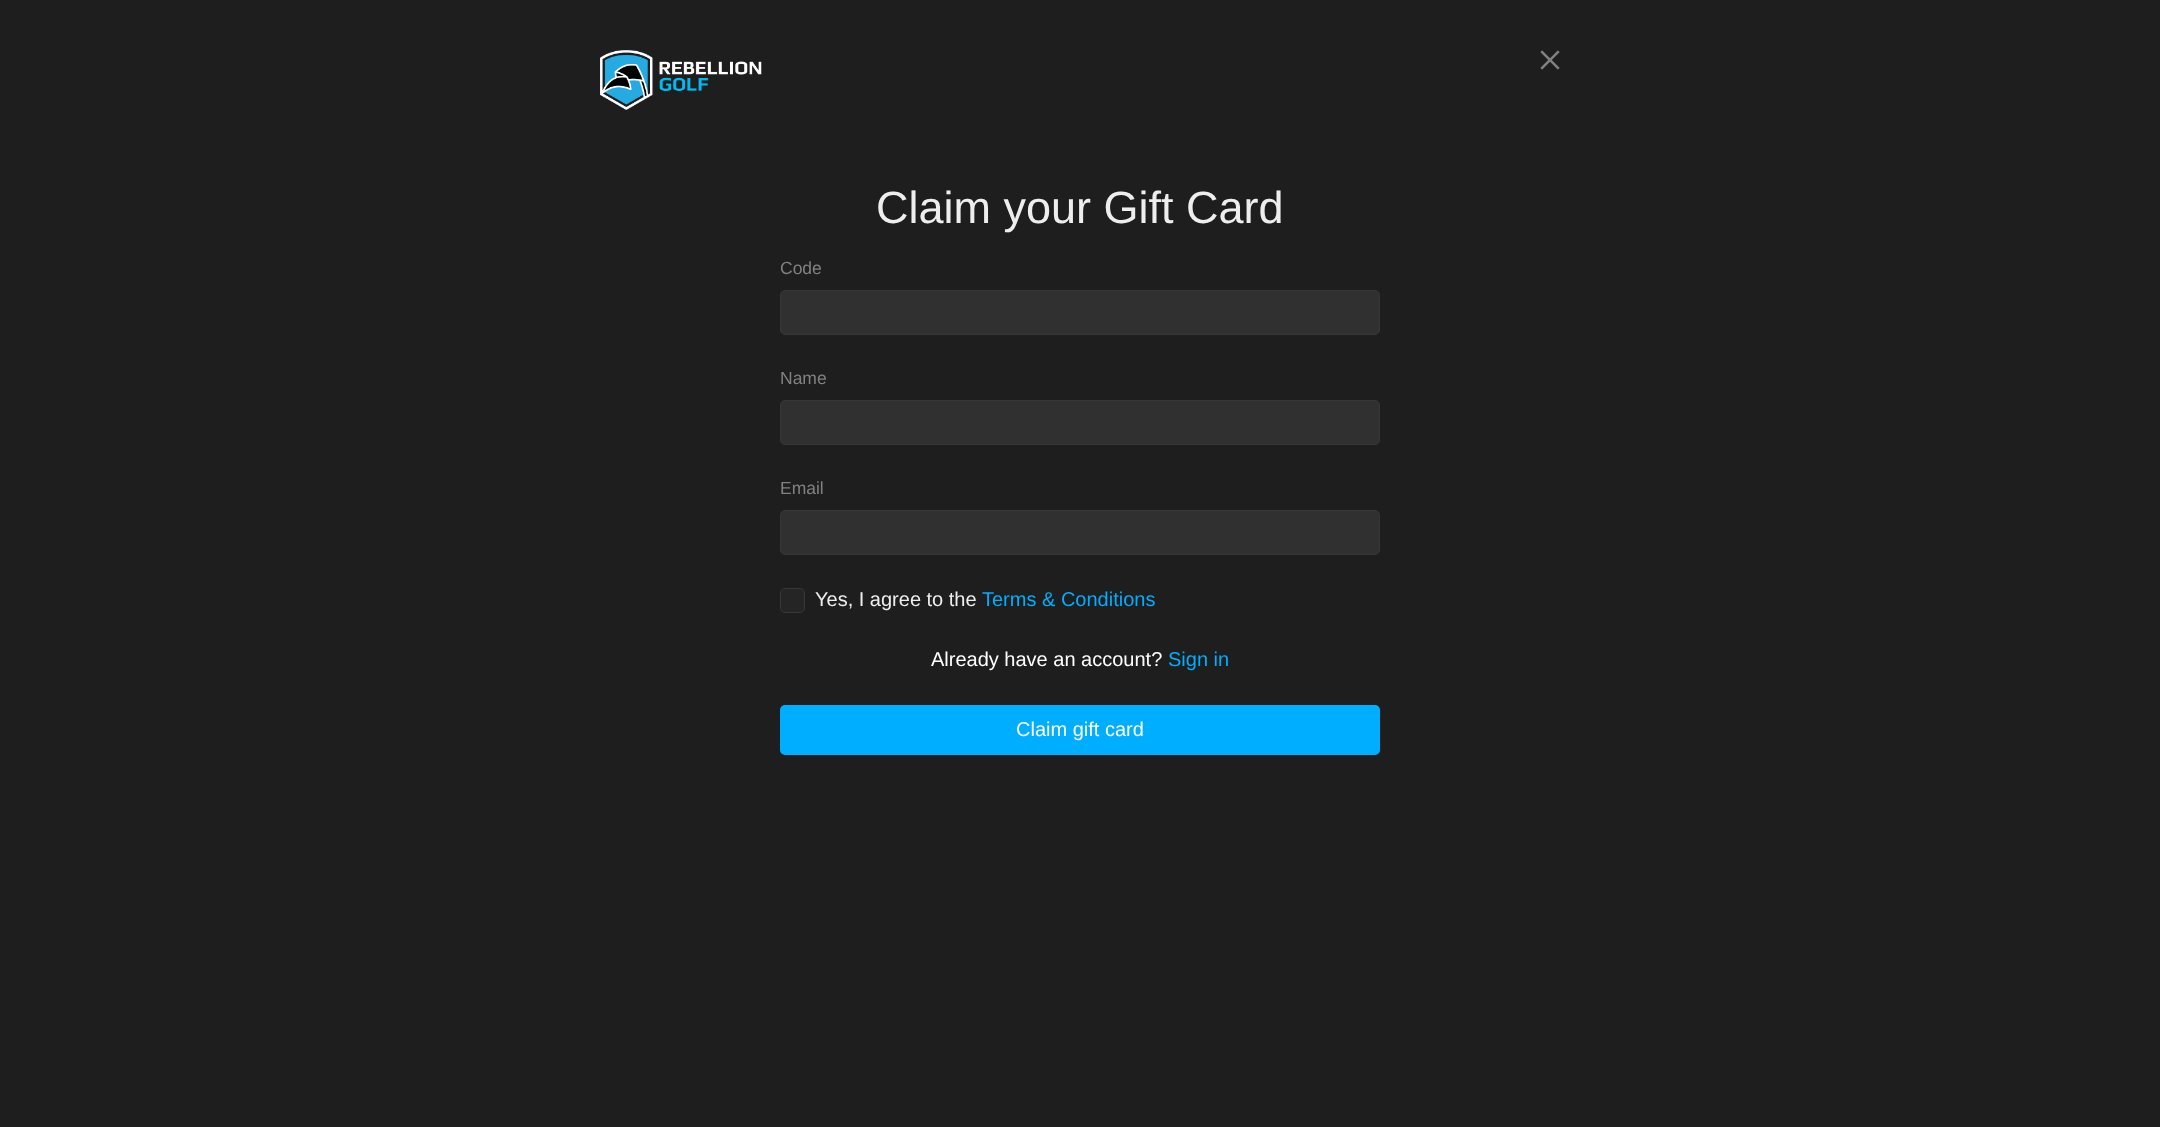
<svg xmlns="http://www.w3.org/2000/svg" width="2160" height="1127">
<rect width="100%" height="100%" fill="#1e1e1e"/>
<image x="600" y="50" width="162" height="60" href="media/1.png"/>
<image x="1540" y="50" width="20" height="20" href="media/2.png"/>
<text x="876" y="223" style="font-family:Liberation Sans;font-size:45px;fill:#eee">Claim your Gift Card</text>
<text x="780" y="274" style="font-family:Liberation Sans;font-size:17.5px;fill:#818181">Code</text>
<rect x="780.5" y="290.5" width="599" height="44" rx="4.5" fill="#303030" stroke="#373737"/>
<text x="780" y="384" style="font-family:Liberation Sans;font-size:17.5px;fill:#818181">Name</text>
<rect x="780.5" y="400.5" width="599" height="44" rx="4.5" fill="#303030" stroke="#373737"/>
<text x="780" y="494" style="font-family:Liberation Sans;font-size:17.5px;fill:#818181">Email</text>
<rect x="780.5" y="510.5" width="599" height="44" rx="4.5" fill="#303030" stroke="#373737"/>
<rect x="780.5" y="588.5" width="24" height="24" rx="4.5" fill="#252525" stroke="#373737"/>
<text x="815" y="606" style="font-family:Liberation Sans;font-size:20px;fill:#eee">Yes, I agree to the</text>
<text x="982" y="606" style="font-family:Liberation Sans;font-size:20px;fill:#00aeff">Terms &amp; Conditions</text>
<text x="931" y="666" style="font-family:Liberation Sans;font-size:20px;fill:#fff">Already have an account?</text>
<text x="1168" y="666" style="font-family:Liberation Sans;font-size:20px;fill:#00aeff">Sign in</text>
<rect x="780" y="705" width="600" height="50" rx="5" fill="#00aeff"/>
<text x="1016" y="736" style="font-family:Liberation Sans;font-size:20px;fill:#fff">Claim gift card</text>
</svg>
